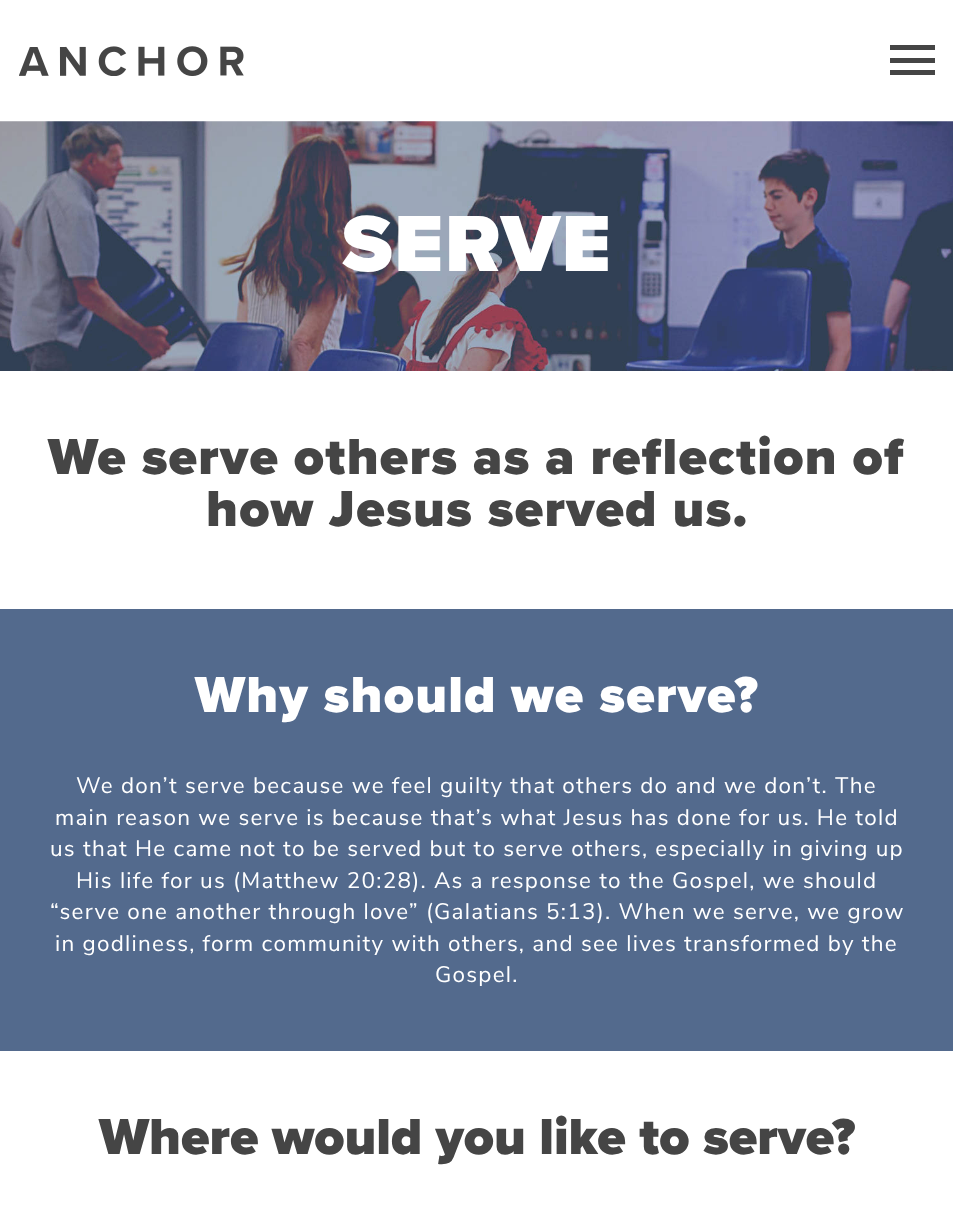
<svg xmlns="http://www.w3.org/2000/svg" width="953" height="1207">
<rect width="100%" height="100%" fill="#fff"/>
<image x="19" y="46" width="225" height="30" href="media/1.png"/>
<rect x="890" y="45" width="45" height="5" fill="#454545"/>
<rect x="890" y="58" width="45" height="5" fill="#454545"/>
<rect x="890" y="70" width="45" height="5" fill="#454545"/>
<image x="0" y="121" width="953" height="250" href="media/2.png"/>
<text x="342" y="271" style="font-family:Proxima Nova;font-size:82.5px;font-weight:900;letter-spacing:1.5px;fill:#fff">SERVE</text>
<text x="48" y="474" style="font-family:Proxima Nova;font-size:52.5px;font-weight:900;letter-spacing:1.25px;fill:#454545">We serve others as a reflection of</text>
<text x="206" y="526" style="font-family:Proxima Nova;font-size:52.5px;font-weight:900;letter-spacing:1.25px;fill:#454545">how Jesus served us.</text>
<rect y="609" width="953" height="442" fill="#536a8d"/>
<text x="195" y="712" style="font-family:Proxima Nova;font-size:52.5px;font-weight:900;letter-spacing:1.25px;fill:#fff">Why should we serve?</text>
<text x="76" y="793" style="font-family:Nunito Sans;font-size:22.5px;letter-spacing:1.25px;fill:#fff">We don’t serve because we feel guilty that others do and we don’t. The</text>
<text x="55" y="825" style="font-family:Nunito Sans;font-size:22.5px;letter-spacing:1.25px;fill:#fff">main reason we serve is because that’s what Jesus has done for us. He told</text>
<text x="50" y="856" style="font-family:Nunito Sans;font-size:22.5px;letter-spacing:1.25px;fill:#fff">us that He came not to be served but to serve others, especially in giving up</text>
<text x="76" y="888" style="font-family:Nunito Sans;font-size:22.5px;letter-spacing:1.25px;fill:#fff">His life for us (Matthew 20:28). As a response to the Gospel, we should</text>
<text x="50" y="919" style="font-family:Nunito Sans;font-size:22.5px;letter-spacing:1.25px;fill:#fff">“serve one another through love” (Galatians 5:13). When we serve, we grow</text>
<text x="55" y="951" style="font-family:Nunito Sans;font-size:22.5px;letter-spacing:1.25px;fill:#fff">in godliness, form community with others, and see lives transformed by the</text>
<text x="435" y="982" style="font-family:Nunito Sans;font-size:22.5px;letter-spacing:1.25px;fill:#fff">Gospel.</text>
<text x="99" y="1154" style="font-family:Proxima Nova;font-size:52.5px;font-weight:900;fill:#454545">Where would you like to serve?</text>
</svg>
